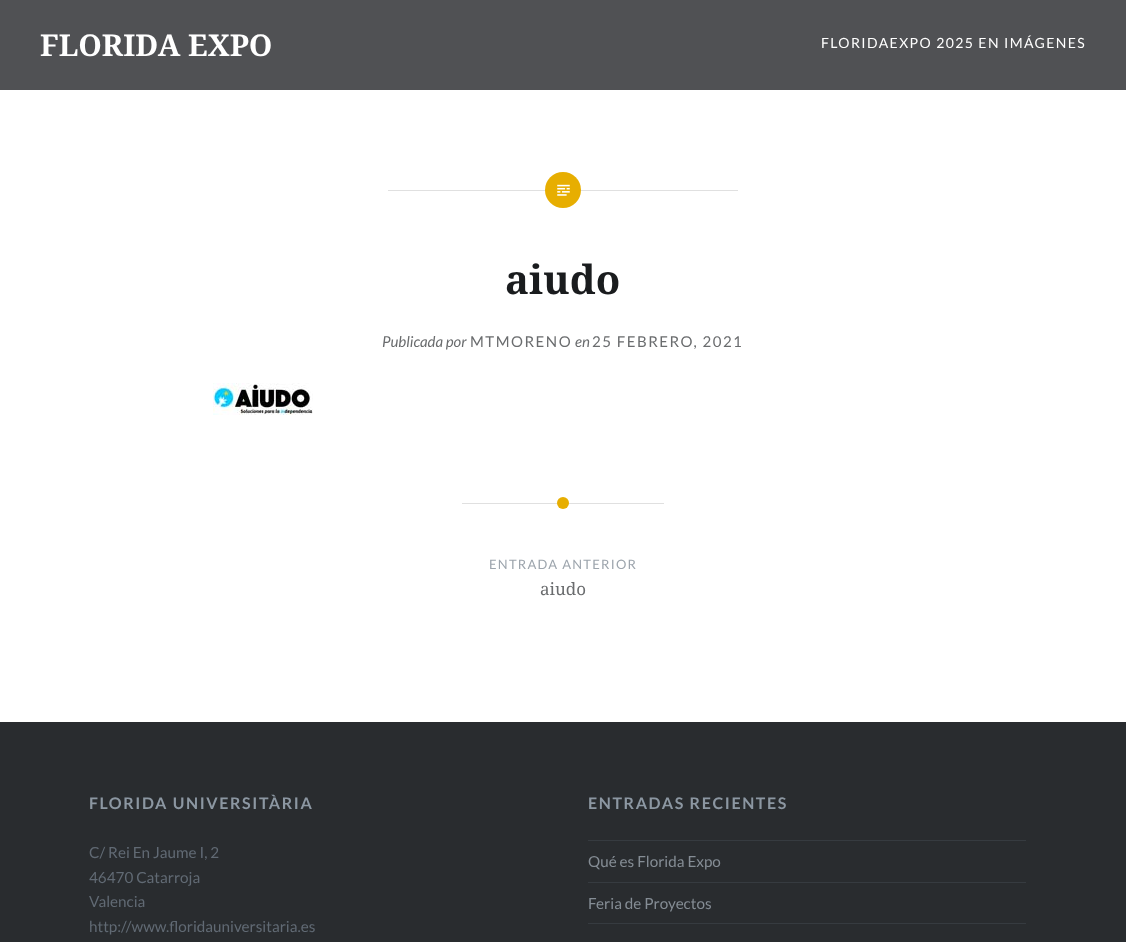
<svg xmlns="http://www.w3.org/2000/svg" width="1126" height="942">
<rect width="100%" height="100%" fill="#fff"/>
<rect width="1126" height="90" fill="#505154"/>
<text x="40" y="56" style="font-family:Noto Serif;font-size:30px;font-weight:bold;fill:#fff">FLORIDA EXPO</text>
<text x="821" y="48" style="font-family:Lato;font-size:14px;letter-spacing:1.4px;fill:#fff">FLORIDAEXPO 2025 EN IMÁGENES</text>
<rect x="388" y="190" width="350" height="1" fill="#e0e0e0"/>
<circle cx="563" cy="190" r="18" fill="#e7ae01"/>
<image x="557" y="184" width="13" height="12" href="media/1.png"/>
<image x="213" y="383" width="100" height="32" href="media/2.png"/>
<text x="505" y="294" style="font-family:Noto Serif;font-size:40px;font-weight:bold;fill:#1a1c1e">aiudo</text>
<text x="382" y="347" style="font-family:Lato;font-size:15px;font-style:italic;fill:#6a6c6e">Publicada por</text>
<text x="470" y="347" style="font-family:Lato;font-size:15px;letter-spacing:1.5px;fill:#6a6c6e">MTMORENO</text>
<text x="575" y="347" style="font-family:Lato;font-size:15px;font-style:italic;fill:#6a6c6e">en</text>
<text x="592" y="347" style="font-family:Lato;font-size:15px;letter-spacing:1.5px;fill:#6a6c6e">25 FEBRERO, 2021</text>
<rect x="462" y="503" width="202" height="1" fill="#e0e0e0"/>
<circle cx="563" cy="503" r="6" fill="#e7ae01"/>
<text x="489" y="569" style="font-family:Lato;font-size:13px;letter-spacing:1.25px;fill:#9da5ad">ENTRADA ANTERIOR</text>
<text x="540" y="595" style="font-family:Noto Serif;font-size:17px;fill:#6a6c6e">aiudo</text>
<rect y="722" width="1126" height="220" fill="#292c2f"/>
<text x="89" y="809" style="font-family:Lato;font-size:16px;font-weight:bold;letter-spacing:1.6px;fill:#8c97a2">FLORIDA UNIVERSITÀRIA</text>
<text x="89" y="858" style="font-family:Lato;font-size:15.25px;fill:#616a74">C/ Rei En Jaume I, 2</text>
<text x="89" y="883" style="font-family:Lato;font-size:15.25px;fill:#616a74">46470 Catarroja</text>
<text x="89" y="907" style="font-family:Lato;font-size:15.25px;fill:#616a74">Valencia</text>
<text x="89" y="932" style="font-family:Lato;font-size:15.25px;fill:#616a74">http://www.floridauniversitaria.es</text>
<text x="588" y="809" style="font-family:Lato;font-size:16px;font-weight:bold;letter-spacing:1.6px;fill:#8c97a2">ENTRADAS RECIENTES</text>
<rect x="588" y="840" width="438" height="1" fill="#363b40"/>
<rect x="588" y="882" width="438" height="1" fill="#363b40"/>
<text x="588" y="867" style="font-family:Lato;font-size:15.25px;fill:#858d95">Qué es Florida Expo</text>
<rect x="588" y="923" width="438" height="1" fill="#363b40"/>
<text x="588" y="909" style="font-family:Lato;font-size:15.25px;fill:#858d95">Feria de Proyectos</text>
</svg>
